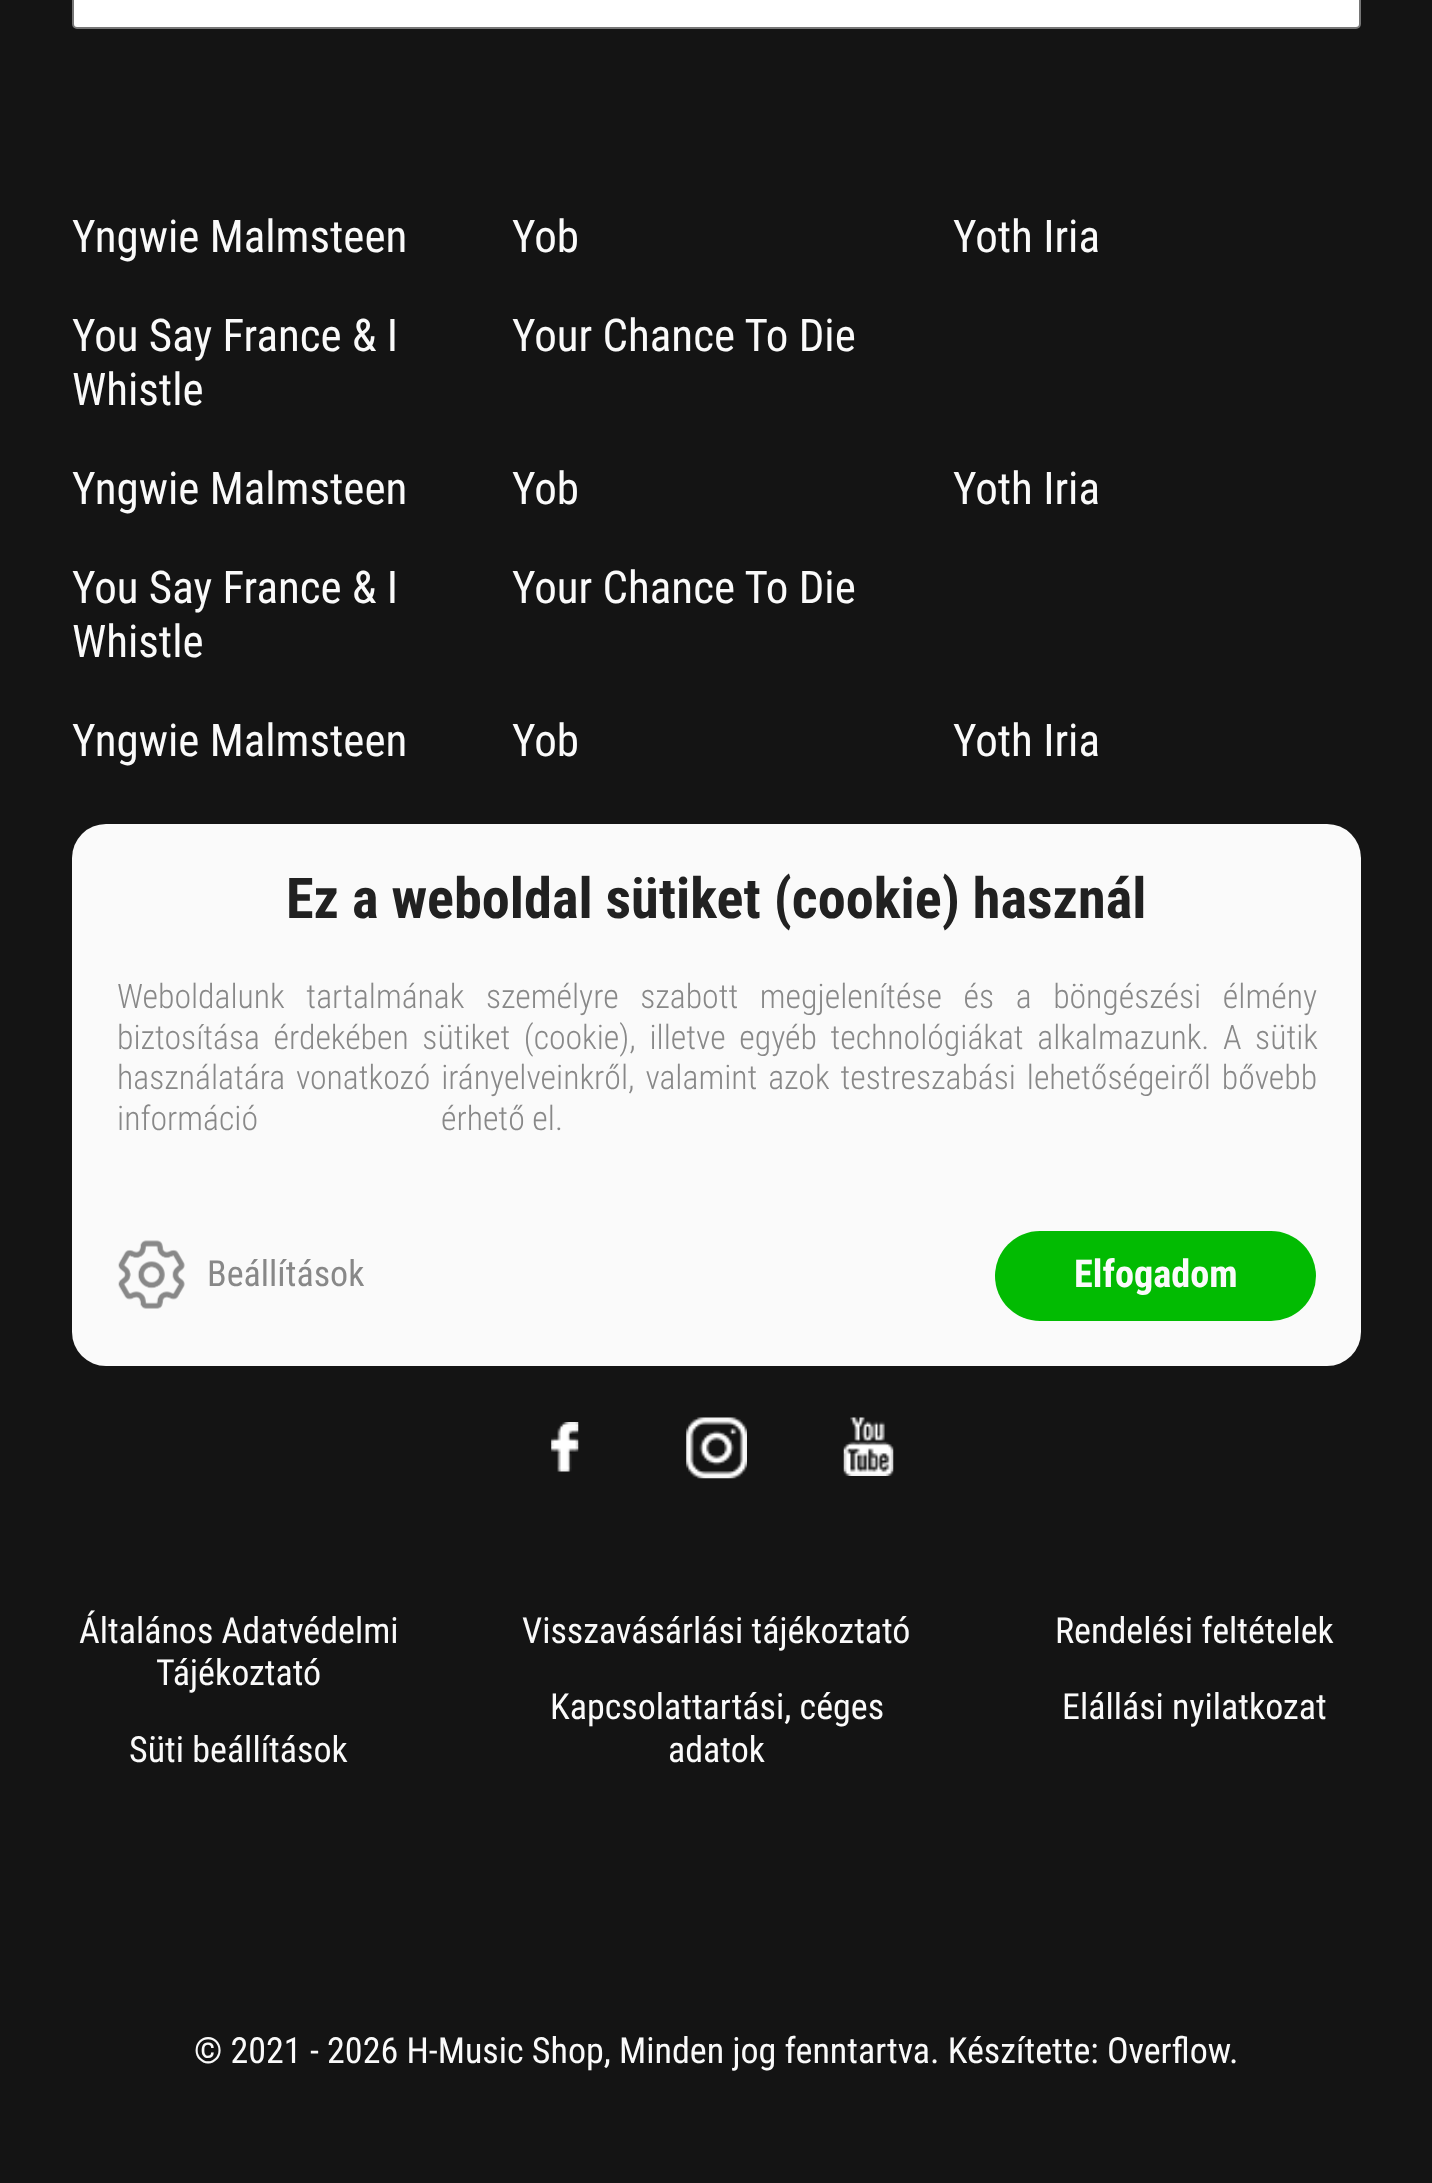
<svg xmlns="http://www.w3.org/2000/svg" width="1432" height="2183">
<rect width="100%" height="100%" fill="#141414"/>
<rect x="73" y="-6" width="1287" height="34" rx="4" fill="#fff" stroke="#767676" stroke-width="2"/>
<text x="72" y="252" style="font-family:Roboto Condensed;font-size:45px;fill:#fafafa">Yngwie Malmsteen</text>
<text x="512" y="252" style="font-family:Roboto Condensed;font-size:45px;fill:#fafafa">Yob</text>
<text x="953" y="252" style="font-family:Roboto Condensed;font-size:45px;fill:#fafafa">Yoth Iria</text>
<text x="72" y="351" style="font-family:Roboto Condensed;font-size:45px;fill:#fafafa">You Say France &amp; I</text>
<text x="72" y="405" style="font-family:Roboto Condensed;font-size:45px;fill:#fafafa">Whistle</text>
<text x="512" y="351" style="font-family:Roboto Condensed;font-size:45px;fill:#fafafa">Your Chance To Die</text>
<text x="72" y="504" style="font-family:Roboto Condensed;font-size:45px;fill:#fafafa">Yngwie Malmsteen</text>
<text x="512" y="504" style="font-family:Roboto Condensed;font-size:45px;fill:#fafafa">Yob</text>
<text x="953" y="504" style="font-family:Roboto Condensed;font-size:45px;fill:#fafafa">Yoth Iria</text>
<text x="72" y="603" style="font-family:Roboto Condensed;font-size:45px;fill:#fafafa">You Say France &amp; I</text>
<text x="72" y="657" style="font-family:Roboto Condensed;font-size:45px;fill:#fafafa">Whistle</text>
<text x="512" y="603" style="font-family:Roboto Condensed;font-size:45px;fill:#fafafa">Your Chance To Die</text>
<text x="72" y="756" style="font-family:Roboto Condensed;font-size:45px;fill:#fafafa">Yngwie Malmsteen</text>
<text x="512" y="756" style="font-family:Roboto Condensed;font-size:45px;fill:#fafafa">Yob</text>
<text x="953" y="756" style="font-family:Roboto Condensed;font-size:45px;fill:#fafafa">Yoth Iria</text>
<image x="551" y="1422" width="28" height="50" href="media/1.png"/>
<image x="686" y="1417" width="61" height="62" href="media/2.png"/>
<image x="843" y="1417" width="51" height="59" href="media/3.png"/>
<text x="79" y="1643" style="font-family:Roboto Condensed;font-size:36px;fill:#fafafa">Általános Adatvédelmi</text>
<text x="156" y="1685" style="font-family:Roboto Condensed;font-size:36px;fill:#fafafa">Tájékoztató</text>
<text x="129" y="1762" style="font-family:Roboto Condensed;font-size:36px;fill:#fafafa">Süti beállítások</text>
<text x="522" y="1643" style="font-family:Roboto Condensed;font-size:36px;fill:#fafafa">Visszavásárlási tájékoztató</text>
<text x="550" y="1719" style="font-family:Roboto Condensed;font-size:36px;fill:#fafafa">Kapcsolattartási, céges</text>
<text x="668" y="1762" style="font-family:Roboto Condensed;font-size:36px;fill:#fafafa">adatok</text>
<text x="1055" y="1643" style="font-family:Roboto Condensed;font-size:36px;fill:#fafafa">Rendelési feltételek</text>
<text x="1062" y="1719" style="font-family:Roboto Condensed;font-size:36px;fill:#fafafa">Elállási nyilatkozat</text>
<text x="194" y="2063" style="font-family:Roboto Condensed;font-size:36px;fill:#fafafa">© 2021 - 2026 H-Music Shop, Minden jog fenntartva. Készítette: Overflow.</text>
<rect x="72" y="824" width="1289" height="542" rx="34" fill="#fafafa"/>
<text x="286" y="918" style="font-family:Roboto Condensed;font-size:56.25px;font-weight:bold;fill:#212121">Ez a weboldal sütiket (cookie) használ</text>
<text x="117" y="1008" word-spacing="14" style="font-family:Roboto Condensed;font-size:33.75px;font-weight:300;fill:#888">Weboldalunk tartalmának személyre szabott megjelenítése és a böngészési élmény</text>
<text x="117" y="1049" word-spacing="6" style="font-family:Roboto Condensed;font-size:33.75px;font-weight:300;fill:#888">biztosítása érdekében sütiket (cookie), illetve egyéb technológiákat alkalmazunk. A sütik</text>
<text x="117" y="1089" word-spacing="3.25" style="font-family:Roboto Condensed;font-size:33.75px;font-weight:300;fill:#888">használatára vonatkozó irányelveinkről, valamint azok testreszabási lehetőségeiről bővebb</text>
<text x="117" y="1130" style="font-family:Roboto Condensed;font-size:33.75px;font-weight:300;fill:#888">információ</text>
<text x="441" y="1130" style="font-family:Roboto Condensed;font-size:33.75px;font-weight:300;fill:#888">érhető el.</text>
<image x="118" y="1240" width="67" height="69" href="media/4.png"/>
<text x="207" y="1286" style="font-family:Roboto Condensed;font-size:36px;fill:#888">Beállítások</text>
<rect x="995" y="1231" width="321" height="90" rx="45" fill="#02bb02"/>
<text x="1074" y="1287" style="font-family:Roboto Condensed;font-size:38.25px;font-weight:bold;fill:#fafafa">Elfogadom</text>
</svg>
